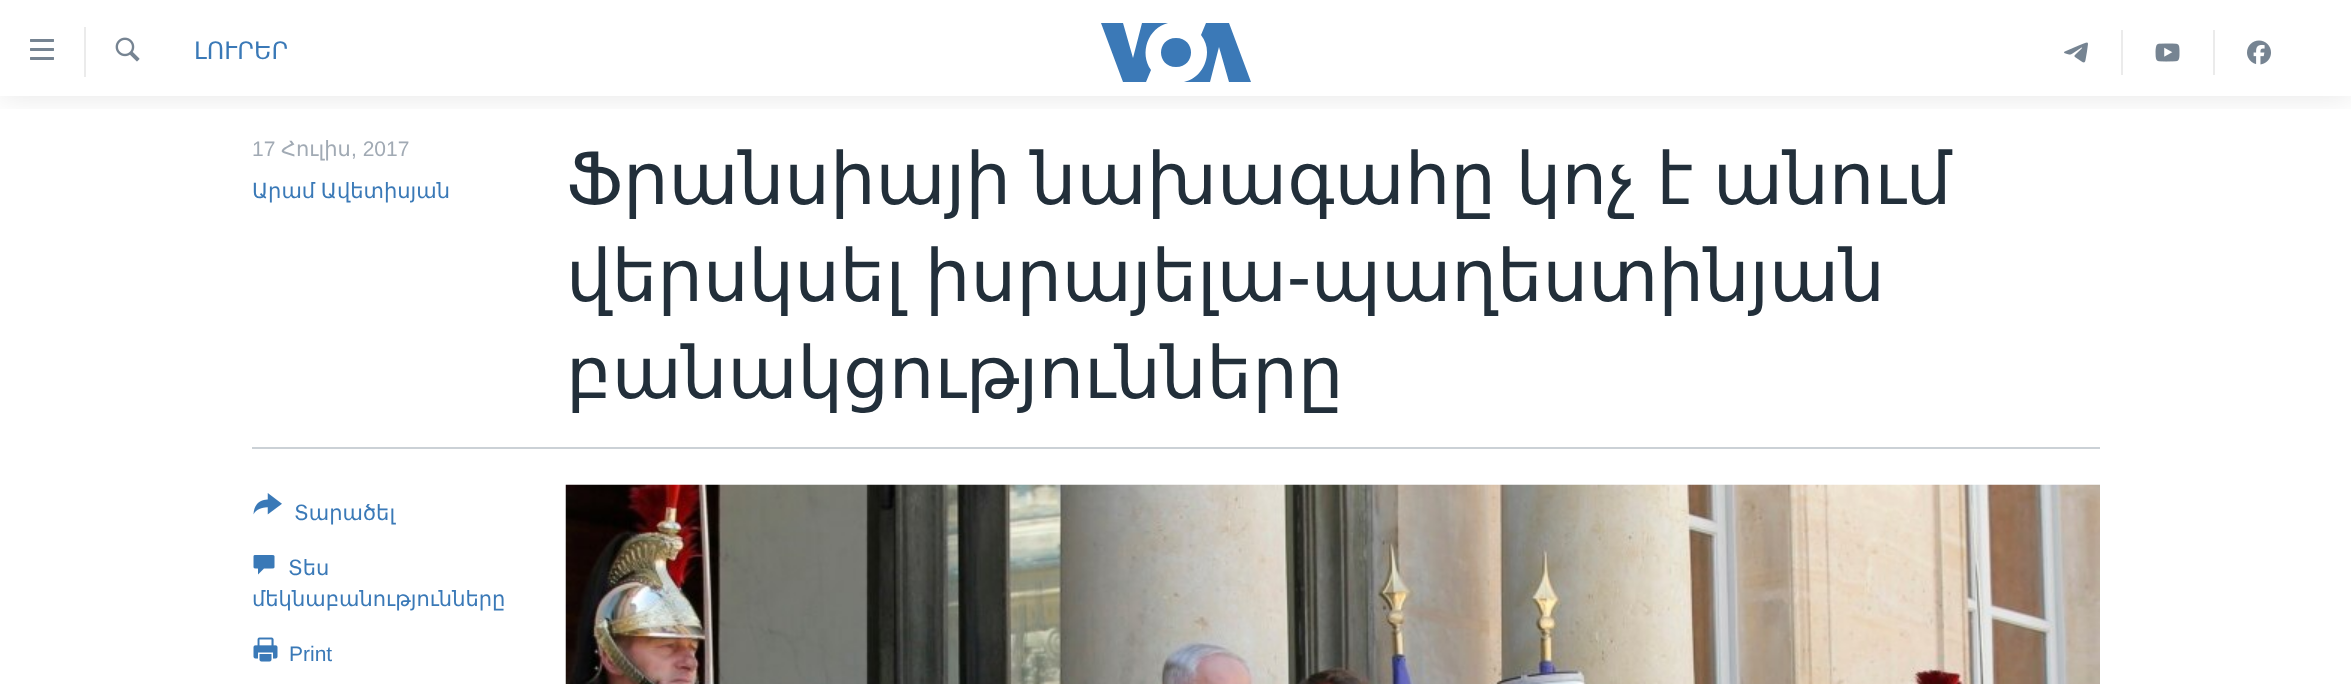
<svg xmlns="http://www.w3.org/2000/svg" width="2351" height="684">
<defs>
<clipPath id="clip1"><rect x="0" y="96" width="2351" height="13"/></clipPath>
</defs>
<rect width="100%" height="100%" fill="#fff"/>
<g clip-path="url(#clip1)">
<rect width="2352" height="96" fill="#0000001a" filter="blur(15px)"/>
</g>
<image x="30" y="39" width="24" height="21" href="media/1.png"/>
<rect x="84" y="27" width="2" height="50" fill="#ebebeb"/>
<image x="115" y="37" width="25" height="25" href="media/2.png"/>
<text x="194" y="59" style="font-family:DejaVu Sans;font-size:24px;fill:#3a79b7">ԼՈՒՐԵՐ</text>
<path d="M1151 70l-5 12h-23l-22-59h22l10 35l9-35h26c-20 5-29 30-17 47zm25-32c-20 0-20 29 0 29c20 0 20-29 0-29zm31 14c0 15-10 27-23 30h26l9-35l10 35h22l-22-59h-23l-5 12c4 5 6 11 6 17z" fill="#3b79b7"/>
<rect x="2121" y="30" width="2" height="45" fill="#ebebeb"/>
<image x="2064" y="42" width="24" height="21" href="media/3.png"/>
<rect x="2213" y="30" width="2" height="45" fill="#ebebeb"/>
<image x="2155" y="43" width="25" height="19" href="media/4.png"/>
<image x="2247" y="40" width="24" height="25" href="media/5.png"/>
<text x="252" y="156" style="font-family:Liberation Sans;font-size:21px;fill:#a1aab4">17</text>
<text x="281" y="156" style="font-family:DejaVu Sans;font-size:21px;fill:#a1aab4">Հուլիս</text>
<text x="351" y="156" style="font-family:Liberation Sans;font-size:21px;fill:#a1aab4">, 2017</text>
<text x="252" y="198" word-spacing="-1" style="font-family:DejaVu Sans;font-size:21px;fill:#3a79b7">Արամ Ավետիսյան</text>
<text x="566" y="204" word-spacing="-3" style="font-family:DejaVu Sans;font-size:72px;fill:#222f3a">Ֆրանսիայի նախագահը կոչ է անում</text>
<text x="566" y="301" word-spacing="-3" style="font-family:DejaVu Sans;font-size:72px;fill:#222f3a">վերսկսել իսրայելա</text>
<text x="1287" y="301" style="font-family:Liberation Sans;font-size:72px;fill:#222f3a">-</text>
<text x="1311" y="301" style="font-family:DejaVu Sans;font-size:72px;fill:#222f3a">պաղեստինյան</text>
<text x="566" y="398" style="font-family:DejaVu Sans;font-size:72px;fill:#222f3a">բանակցությունները</text>
<rect x="252" y="447" width="1848" height="2" fill="#cbd1d6"/>
<image x="253" y="493" width="29" height="22" href="media/6.png"/>
<text x="294" y="520" style="font-family:DejaVu Sans;font-size:21px;fill:#3a79b7">Տարածել</text>
<image x="253" y="555" width="22" height="20" href="media/7.png"/>
<text x="288" y="575" style="font-family:DejaVu Sans;font-size:21px;fill:#3a79b7">Տես</text>
<text x="252" y="606" style="font-family:DejaVu Sans;font-size:21px;fill:#3a79b7">մեկնաբանությունները</text>
<image x="253" y="637" width="25" height="25" href="media/8.png"/>
<text x="289" y="661" style="font-family:Liberation Sans;font-size:21px;fill:#3a79b7">Print</text>
<image x="565" y="484" width="1535" height="200" href="media/9.png"/>
</svg>
